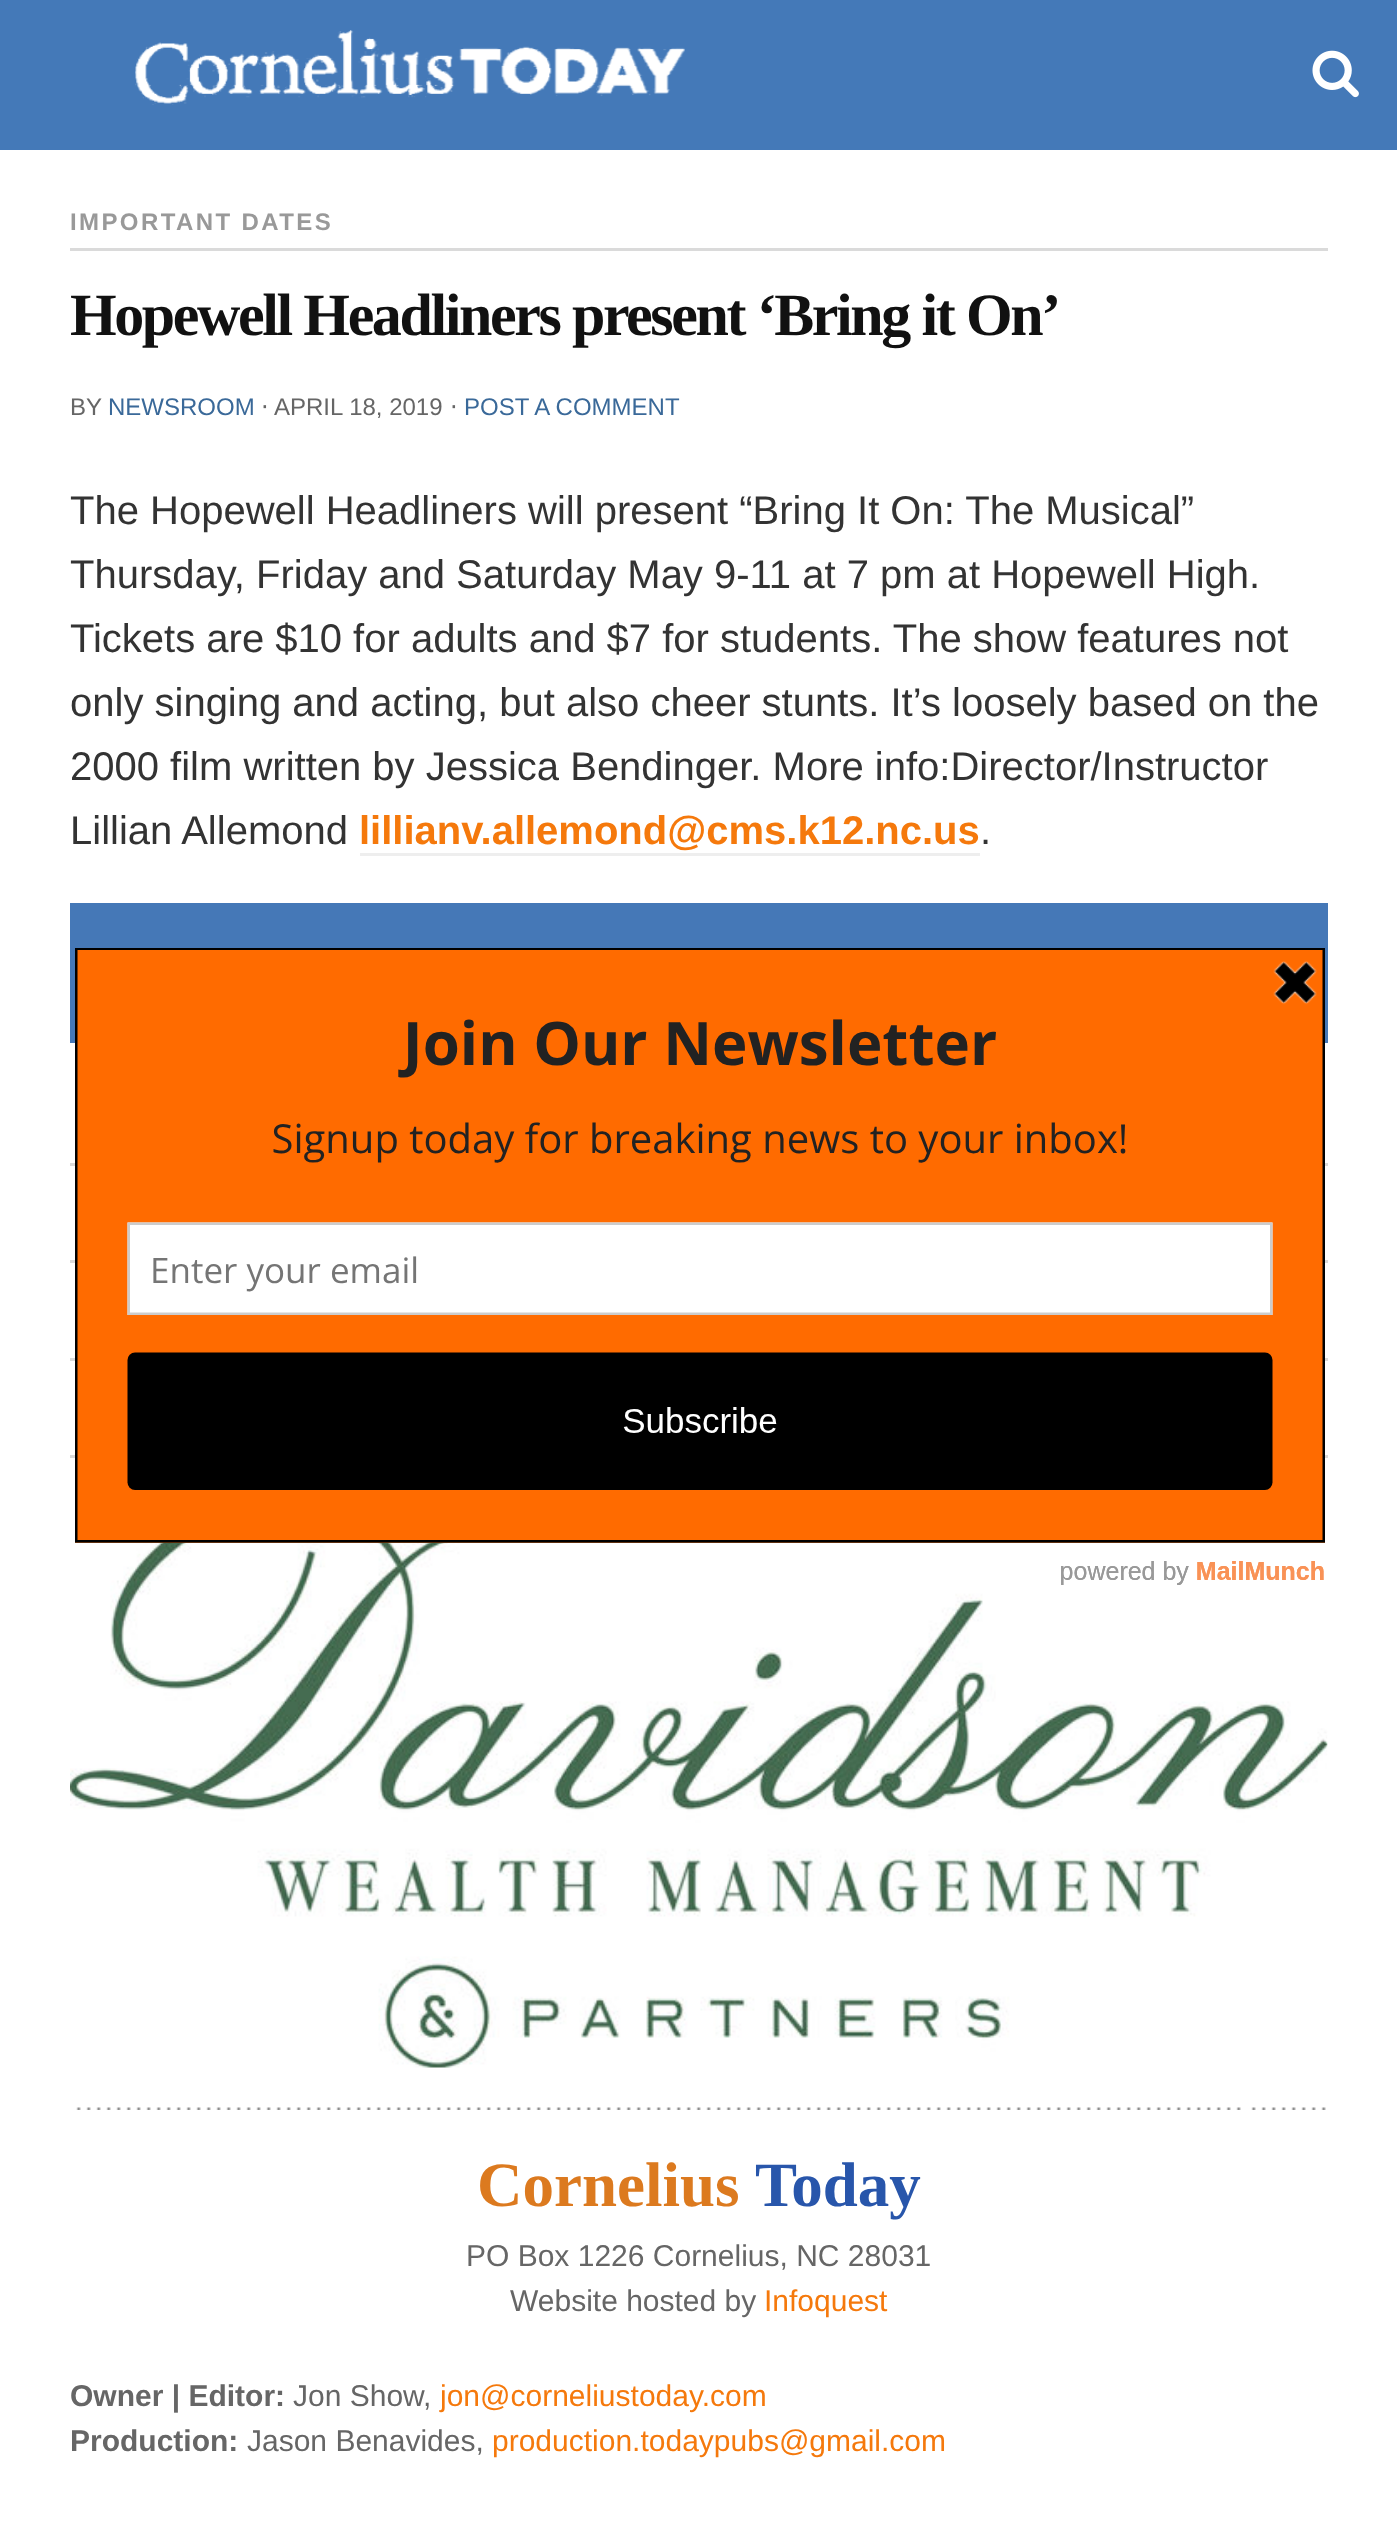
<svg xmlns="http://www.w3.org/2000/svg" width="1397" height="2545">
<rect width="100%" height="100%" fill="#fff"/>
<rect width="1397" height="150" fill="#4479b8"/>
<image x="135" y="30" width="550" height="75" href="media/1.png"/>
<image x="1312" y="50" width="47" height="48" href="media/2.png"/>
<rect x="70" y="248" width="1258" height="3" fill="#dadada"/>
<text x="70" y="230" style="font-family:Liberation Sans;font-size:24px;font-weight:bold;letter-spacing:2.4px;fill:#999">IMPORTANT DATES</text>
<text x="70" y="335" style="font-family:Liberation Serif;font-size:60px;font-weight:bold;letter-spacing:-2.4px;fill:#111">Hopewell Headliners present ‘Bring it On’</text>
<text x="70" y="415" style="font-family:Liberation Sans;font-size:24px;fill:#666">BY</text>
<text x="108" y="415" style="font-family:Liberation Sans;font-size:24px;fill:#3a6999">NEWSROOM</text>
<text x="261" y="415" style="font-family:DejaVu Sans;font-size:24px;fill:#666">⋅</text>
<text x="274" y="415" style="font-family:Liberation Sans;font-size:24px;fill:#666">APRIL 18, 2019</text>
<text x="450" y="415" style="font-family:DejaVu Sans;font-size:24px;fill:#666">⋅</text>
<text x="464" y="415" style="font-family:Liberation Sans;font-size:24px;fill:#3a6999">POST A COMMENT</text>
<text x="70" y="524" style="font-family:Liberation Sans;font-size:40px;fill:#333">The Hopewell Headliners will present “Bring It On: The Musical”</text>
<text x="70" y="588" style="font-family:Liberation Sans;font-size:40px;fill:#333">Thursday, Friday and Saturday May 9-11 at 7 pm at Hopewell High.</text>
<text x="70" y="652" style="font-family:Liberation Sans;font-size:40px;fill:#333">Tickets are $10 for adults and $7 for students. The show features not</text>
<text x="70" y="716" style="font-family:Liberation Sans;font-size:40px;fill:#333">only singing and acting, but also cheer stunts. It’s loosely based on the</text>
<text x="70" y="780" style="font-family:Liberation Sans;font-size:40px;fill:#333">2000 film written by Jessica Bendinger. More info:Director/Instructor</text>
<text x="70" y="844" style="font-family:Liberation Sans;font-size:40px;fill:#333">Lillian Allemond</text>
<text x="359" y="844" style="font-family:Liberation Sans;font-size:40px;font-weight:bold;fill:#f5790c">lillianv.allemond@cms.k12.nc.us</text>
<rect x="360" y="853" width="620" height="3" fill="#eee"/>
<text x="980" y="844" style="font-family:Liberation Sans;font-size:40px;fill:#333">.</text>
<rect x="70" y="903" width="1258" height="140" fill="#4578b7"/>
<rect x="70" y="1163" width="1258" height="3" fill="#dadada"/>
<rect x="70" y="1260" width="1258" height="3" fill="#dadada"/>
<rect x="70" y="1358" width="1258" height="3" fill="#dadada"/>
<rect x="70" y="1455" width="1258" height="3" fill="#dadada"/>
<image x="70" y="1500" width="1258" height="568" href="media/3.png"/>
<image x="76" y="2107" width="1250" height="3" href="media/4.png"/>
<text x="477" y="2206" style="font-family:Liberation Serif;font-size:63px;font-weight:bold;fill:#dc7a1f">Cornelius</text>
<text x="755" y="2206" style="font-family:Liberation Serif;font-size:63px;font-weight:bold;fill:#2856ab">Today</text>
<text x="466" y="2266" style="font-family:Liberation Sans;font-size:30px;fill:#666">PO Box 1226 Cornelius, NC 28031</text>
<text x="510" y="2311" style="font-family:Liberation Sans;font-size:30px;fill:#666">Website hosted by</text>
<text x="764" y="2311" style="font-family:Liberation Sans;font-size:30px;fill:#f5790c">Infoquest</text>
<text x="70" y="2406" style="font-family:Liberation Sans;font-size:30px;font-weight:bold;fill:#666">Owner | Editor:</text>
<text x="293" y="2406" style="font-family:Liberation Sans;font-size:30px;fill:#666">Jon Show,</text>
<text x="440" y="2406" style="font-family:Liberation Sans;font-size:30px;fill:#f5790c">jon@corneliustoday.com</text>
<text x="70" y="2451" style="font-family:Liberation Sans;font-size:30px;font-weight:bold;fill:#666">Production:</text>
<text x="247" y="2451" style="font-family:Liberation Sans;font-size:30px;fill:#666">Jason Benavides,</text>
<text x="492" y="2451" style="font-family:Liberation Sans;font-size:30px;fill:#f5790c">production.todaypubs@gmail.com</text>
<image x="75" y="948" width="1250" height="637" href="media/5.png"/>
<image x="75" y="1542" width="1250" height="43" href="media/6.png"/>
</svg>
